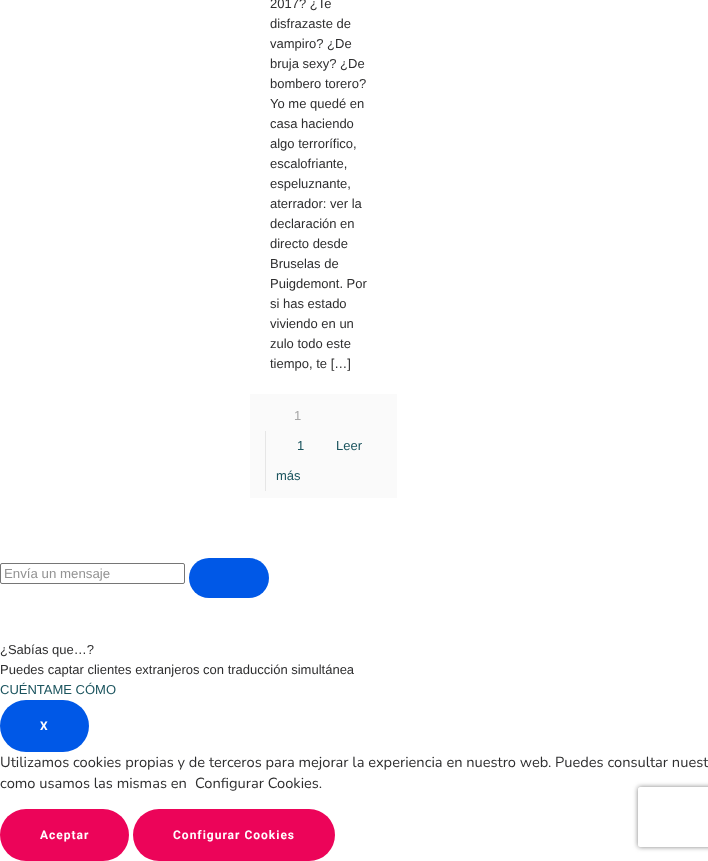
<svg xmlns="http://www.w3.org/2000/svg" width="708" height="861">
<defs>
<clipPath id="clip1"><path d="M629 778h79v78h-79zm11 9h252c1 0 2 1 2 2v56c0 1-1 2-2 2h-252c-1 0-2-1-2-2v-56c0-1 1-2 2-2z" clip-rule="evenodd"/></clipPath>
</defs>
<rect width="100%" height="100%" fill="#fff"/>
<text x="270" y="8" style="font-family:Liberation Sans;font-size:13px;fill:#2e2e2f">2017? ¿Te</text>
<text x="270" y="28" style="font-family:Liberation Sans;font-size:13px;fill:#2e2e2f">disfrazaste de</text>
<text x="270" y="48" style="font-family:Liberation Sans;font-size:13px;fill:#2e2e2f">vampiro? ¿De</text>
<text x="270" y="68" style="font-family:Liberation Sans;font-size:13px;fill:#2e2e2f">bruja sexy? ¿De</text>
<text x="270" y="88" style="font-family:Liberation Sans;font-size:13px;fill:#2e2e2f">bombero torero?</text>
<text x="270" y="108" style="font-family:Liberation Sans;font-size:13px;fill:#2e2e2f">Yo me quedé en</text>
<text x="270" y="128" style="font-family:Liberation Sans;font-size:13px;fill:#2e2e2f">casa haciendo</text>
<text x="270" y="148" style="font-family:Liberation Sans;font-size:13px;fill:#2e2e2f">algo terrorífico,</text>
<text x="270" y="168" style="font-family:Liberation Sans;font-size:13px;fill:#2e2e2f">escalofriante,</text>
<text x="270" y="188" style="font-family:Liberation Sans;font-size:13px;fill:#2e2e2f">espeluznante,</text>
<text x="270" y="208" style="font-family:Liberation Sans;font-size:13px;fill:#2e2e2f">aterrador: ver la</text>
<text x="270" y="228" style="font-family:Liberation Sans;font-size:13px;fill:#2e2e2f">declaración en</text>
<text x="270" y="248" style="font-family:Liberation Sans;font-size:13px;fill:#2e2e2f">directo desde</text>
<text x="270" y="268" style="font-family:Liberation Sans;font-size:13px;fill:#2e2e2f">Bruselas de</text>
<text x="270" y="288" style="font-family:Liberation Sans;font-size:13px;fill:#2e2e2f">Puigdemont. Por</text>
<text x="270" y="308" style="font-family:Liberation Sans;font-size:13px;fill:#2e2e2f">si has estado</text>
<text x="270" y="328" style="font-family:Liberation Sans;font-size:13px;fill:#2e2e2f">viviendo en un</text>
<text x="270" y="348" style="font-family:Liberation Sans;font-size:13px;fill:#2e2e2f">zulo todo este</text>
<text x="270" y="368" style="font-family:Liberation Sans;font-size:13px;fill:#2e2e2f">tiempo, te […]</text>
<rect x="250" y="394" width="147" height="104" fill="#fafafa"/>
<text x="294" y="420" style="font-family:Liberation Sans;font-size:13px;fill:#a8a8a8">1</text>
<rect x="265" y="431" width="1" height="60" fill="#e6e6e6"/>
<text x="297" y="450" style="font-family:Liberation Sans;font-size:13px;fill:#1b545e">1</text>
<text x="336" y="450" style="font-family:Liberation Sans;font-size:13px;fill:#1b545e">Leer</text>
<text x="276" y="480" style="font-family:Liberation Sans;font-size:13px;fill:#1b545e">más</text>
<rect x="0.5" y="563.5" width="184" height="20" rx="1.5" fill="none" stroke="#767676"/>
<text x="4" y="578" style="font-family:Liberation Sans;font-size:13.25px;fill:#929292">Envía un mensaje</text>
<rect x="189" y="558" width="80" height="40" rx="20" fill="#0058e7"/>
<text x="0" y="654" style="font-family:Liberation Sans;font-size:13px;fill:#2e2e2f">¿Sabías que…?</text>
<text x="0" y="674" style="font-family:Liberation Sans;font-size:13px;fill:#2e2e2f">Puedes captar clientes extranjeros con traducción simultánea</text>
<text x="0" y="694" style="font-family:Liberation Sans;font-size:13px;fill:#1b545e">CUÉNTAME CÓMO</text>
<rect y="700" width="89" height="52" rx="26" fill="#0058e7"/>
<text x="40" y="730" style="font-family:Roboto;font-size:12px;font-weight:bold;letter-spacing:1px;fill:#fff">X</text>
<text x="0" y="767" style="font-family:Nunito;font-size:14.65px;fill:#2e2e2f">Utilizamos cookies propias y de terceros para mejorar la experiencia en nuestro web. Puedes consultar nuest</text>
<text x="0" y="788" style="font-family:Nunito;font-size:14.65px;fill:#2e2e2f">como usamos las mismas en</text>
<text x="195" y="788" style="font-family:Nunito;font-size:14.65px;fill:#2e2e2f">Configurar Cookies.</text>
<rect y="809" width="129" height="52" rx="26" fill="#ec0459"/>
<text x="40" y="839" style="font-family:Roboto;font-size:12px;font-weight:bold;letter-spacing:1px;fill:#fff">Aceptar</text>
<rect x="133" y="809" width="202" height="52" rx="26" fill="#ec0459"/>
<text x="173" y="839" style="font-family:Roboto;font-size:12px;font-weight:bold;letter-spacing:1px;fill:#fff">Configurar Cookies</text>
<g clip-path="url(#clip1)">
<rect x="638" y="787" width="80" height="60" rx="2" fill="#808080" filter="blur(2.5px)"/>
</g>
</svg>
